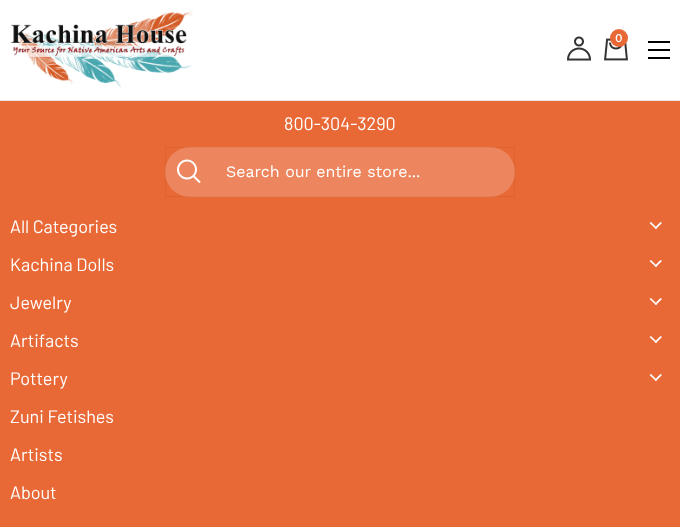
<svg xmlns="http://www.w3.org/2000/svg" width="680" height="527">
<rect width="100%" height="100%" fill="#fff"/>
<rect y="100" width="680" height="1" fill="#e6e6e6"/>
<image x="10" y="10" width="183" height="79" href="media/1.png"/>
<image x="567" y="36" width="24" height="25" href="media/2.png"/>
<image x="604" y="38" width="24" height="23" href="media/3.png"/>
<circle cx="619" cy="38" r="9" fill="#e86836"/>
<text x="615" y="42" style="font-family:Work Sans;font-size:12px;font-weight:500;fill:#fff">0</text>
<rect x="648" y="41" width="22" height="2" fill="#000"/>
<rect x="648" y="49" width="22" height="2" fill="#000"/>
<rect x="648" y="57" width="22" height="2" fill="#000"/>
<rect y="101" width="680" height="426" fill="#e86836"/>
<text x="284" y="130" style="font-family:Barlow;font-size:18px;fill:#fff">800-304-3290</text>
<rect x="165" y="147" width="350" height="50" rx="25" fill="#ed865e"/>
<rect x="165.5" y="147.5" width="349" height="49" fill="none" stroke="#0000000a"/>
<image x="177" y="159" width="24" height="25" href="media/4.png"/>
<text x="226" y="177" style="font-family:Work Sans;font-size:16px;fill:#fff">Search our entire store...</text>
<text x="10" y="233" style="font-family:Barlow;font-size:18px;fill:#fff">All Categories</text>
<path d="M660.5 222l1.5 1l-6 6l-1.5-1z" fill="#fff"/>
<path d="M651 222l6 6l-1 1l-6.5-6z" fill="#fff"/>
<text x="10" y="271" style="font-family:Barlow;font-size:18px;fill:#fff">Kachina Dolls</text>
<path d="M660.5 260l1.5 1l-6 6l-1.5-1z" fill="#fff"/>
<path d="M651 260l6 6l-1 1l-6.5-6z" fill="#fff"/>
<text x="10" y="309" style="font-family:Barlow;font-size:18px;fill:#fff">Jewelry</text>
<path d="M660.5 298l1.5 1l-6 6l-1.5-1z" fill="#fff"/>
<path d="M651 298l6 6l-1 1l-6.5-6z" fill="#fff"/>
<text x="10" y="347" style="font-family:Barlow;font-size:18px;fill:#fff">Artifacts</text>
<path d="M660.5 336l1.5 1l-6 6l-1.5-1z" fill="#fff"/>
<path d="M651 336l6 6l-1 1l-6.5-6z" fill="#fff"/>
<text x="10" y="385" style="font-family:Barlow;font-size:18px;fill:#fff">Pottery</text>
<path d="M660.5 374l1.5 1l-6 6l-1.5-1z" fill="#fff"/>
<path d="M651 374l6 6l-1 1l-6.5-6z" fill="#fff"/>
<text x="10" y="423" style="font-family:Barlow;font-size:18px;fill:#fff">Zuni Fetishes</text>
<text x="10" y="461" style="font-family:Barlow;font-size:18px;fill:#fff">Artists</text>
<text x="10" y="499" style="font-family:Barlow;font-size:18px;fill:#fff">About</text>
</svg>
